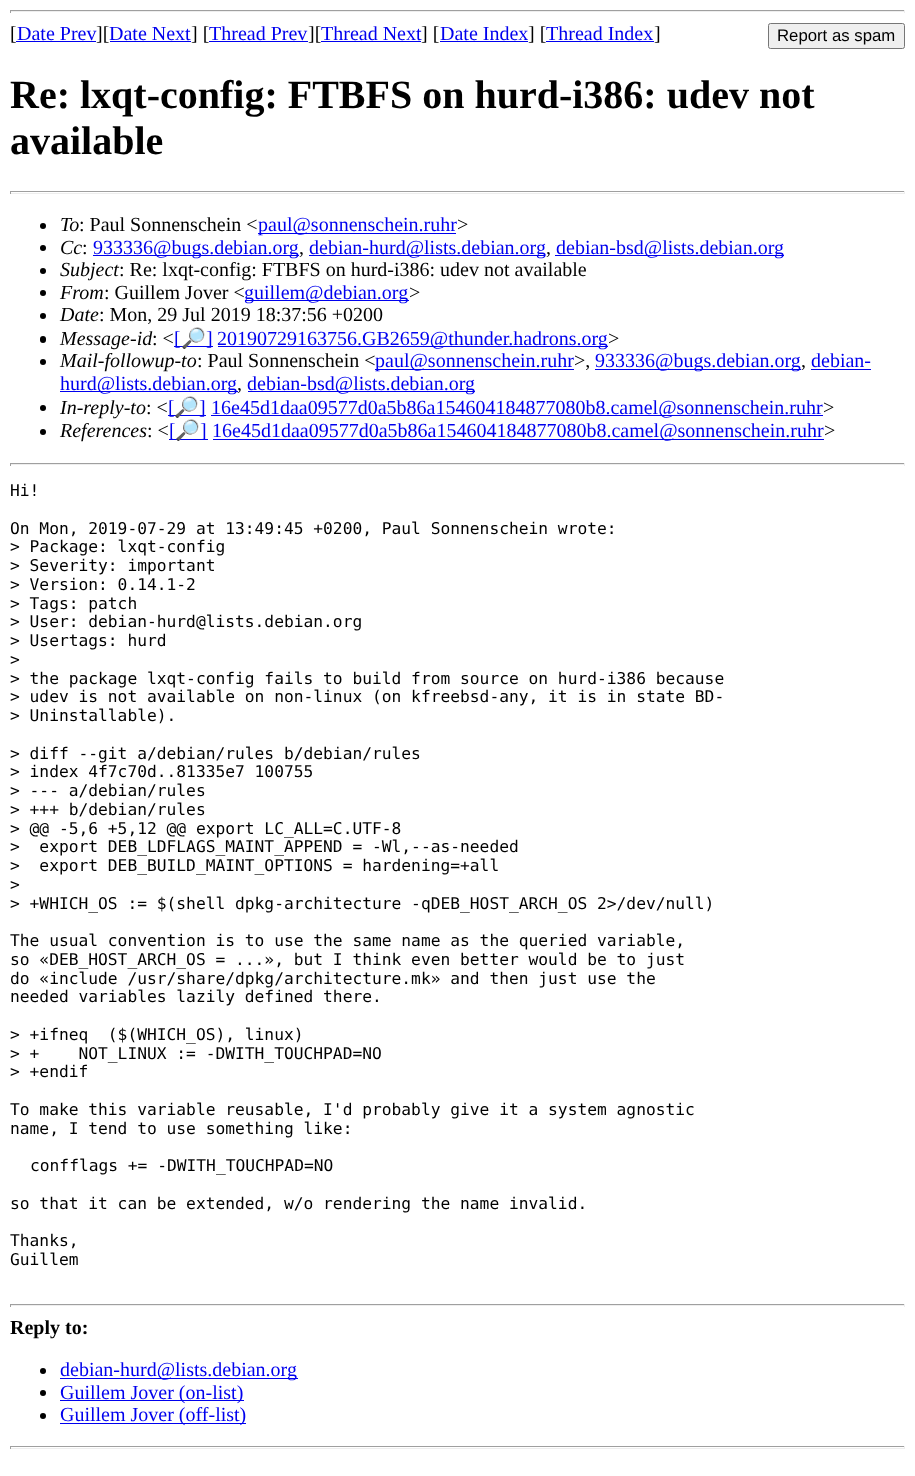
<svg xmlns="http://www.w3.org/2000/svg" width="915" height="1476">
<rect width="100%" height="100%" fill="#fff"/>
<rect x="10" y="10" width="895" height="1" fill="#9f9f9f"/>
<rect x="904" y="10" width="1" height="3" fill="#eee"/>
<rect x="10" y="11" width="895" height="1" fill="#eee"/>
<rect x="10" y="10" width="1" height="3" fill="#9f9f9f"/>
<text x="10" y="40" style="font-family:Liberation Serif;font-size:20px;fill:#000">[</text>
<text x="17" y="40" style="font-family:Liberation Serif;font-size:20px;fill:#00e">Date Prev</text>
<rect x="16" y="41" width="80" height="1" fill="#00e"/>
<text x="96" y="40" style="font-family:Liberation Serif;font-size:20px;fill:#000">][</text>
<text x="109" y="40" style="font-family:Liberation Serif;font-size:20px;fill:#00e">Date Next</text>
<rect x="110" y="41" width="81" height="1" fill="#00e"/>
<text x="191" y="40" style="font-family:Liberation Serif;font-size:20px;fill:#000">] [</text>
<text x="209" y="40" style="font-family:Liberation Serif;font-size:20px;fill:#00e">Thread Prev</text>
<rect x="209" y="41" width="99" height="1" fill="#00e"/>
<text x="308" y="40" style="font-family:Liberation Serif;font-size:20px;fill:#000">][</text>
<text x="321" y="40" style="font-family:Liberation Serif;font-size:20px;fill:#00e">Thread Next</text>
<rect x="321" y="41" width="100" height="1" fill="#00e"/>
<text x="421" y="40" style="font-family:Liberation Serif;font-size:20px;fill:#000">] [</text>
<text x="440" y="40" style="font-family:Liberation Serif;font-size:20px;fill:#00e">Date Index</text>
<rect x="440" y="41" width="88" height="1" fill="#00e"/>
<text x="528" y="40" style="font-family:Liberation Serif;font-size:20px;fill:#000">] [</text>
<text x="546" y="40" style="font-family:Liberation Serif;font-size:20px;fill:#00e">Thread Index</text>
<rect x="546" y="41" width="108" height="1" fill="#00e"/>
<text x="654" y="40" style="font-family:Liberation Serif;font-size:20px;fill:#000">]</text>
<rect x="768.5" y="23.5" width="136" height="25" rx="2" fill="#efefef" stroke="#767676"/>
<text x="777" y="41" style="font-family:Liberation Sans;font-size:16.75px;fill:#000">Report as spam</text>
<text x="10" y="108" style="font-family:Liberation Serif;font-size:40px;font-weight:bold;fill:#000">Re: lxqt-config: FTBFS on hurd-i386: udev not</text>
<text x="10" y="154" style="font-family:Liberation Serif;font-size:40px;font-weight:bold;fill:#000">available</text>
<rect x="10" y="191" width="895" height="1" fill="#9f9f9f"/>
<rect x="904" y="191" width="1" height="3" fill="#eee"/>
<rect x="10" y="193" width="895" height="1" fill="#eee"/>
<rect x="10" y="191" width="1" height="3" fill="#9f9f9f"/>
<circle cx="43" cy="226" r="3" fill="#000"/>
<text x="60" y="231" style="font-family:Liberation Serif;font-size:20px;font-style:italic;fill:#000">To</text>
<text x="79" y="231" style="font-family:Liberation Serif;font-size:20px;fill:#000">: Paul Sonnenschein &lt;</text>
<rect x="258" y="233" width="198" height="1" fill="#00e"/>
<text x="258" y="231" style="font-family:Liberation Serif;font-size:20px;fill:#00e">paul@sonnenschein.ruhr</text>
<text x="457" y="231" style="font-family:Liberation Serif;font-size:20px;fill:#000">&gt;</text>
<circle cx="43" cy="248" r="3" fill="#000"/>
<text x="60" y="254" style="font-family:Liberation Serif;font-size:20px;font-style:italic;fill:#000">Cc</text>
<text x="82" y="254" style="font-family:Liberation Serif;font-size:20px;fill:#000">:</text>
<rect x="93" y="255" width="206" height="1" fill="#00e"/>
<text x="93" y="254" style="font-family:Liberation Serif;font-size:20px;fill:#00e">933336@bugs.debian.org</text>
<rect x="309" y="255" width="236" height="1" fill="#00e"/>
<text x="309" y="254" style="font-family:Liberation Serif;font-size:20px;fill:#00e">debian-hurd@lists.debian.org</text>
<rect x="555" y="255" width="229" height="1" fill="#00e"/>
<text x="556" y="254" style="font-family:Liberation Serif;font-size:20px;fill:#00e">debian-bsd@lists.debian.org</text>
<text x="299" y="254" style="font-family:Liberation Serif;font-size:20px;fill:#000">,</text>
<text x="546" y="254" style="font-family:Liberation Serif;font-size:20px;fill:#000">,</text>
<circle cx="43" cy="271" r="3" fill="#000"/>
<text x="60" y="276" style="font-family:Liberation Serif;font-size:20px;font-style:italic;fill:#000">Subject</text>
<text x="119" y="276" style="font-family:Liberation Serif;font-size:20px;fill:#000">: Re: lxqt-config: FTBFS on hurd-i386: udev not available</text>
<circle cx="43" cy="293" r="3" fill="#000"/>
<text x="60" y="299" style="font-family:Liberation Serif;font-size:20px;font-style:italic;fill:#000">From</text>
<text x="104" y="299" style="font-family:Liberation Serif;font-size:20px;fill:#000">: Guillem Jover &lt;</text>
<rect x="245" y="300" width="164" height="1" fill="#00e"/>
<text x="244" y="299" style="font-family:Liberation Serif;font-size:20px;fill:#00e">guillem@debian.org</text>
<text x="409" y="299" style="font-family:Liberation Serif;font-size:20px;fill:#000">&gt;</text>
<circle cx="43" cy="316" r="3" fill="#000"/>
<text x="60" y="321" style="font-family:Liberation Serif;font-size:20px;font-style:italic;fill:#000">Date</text>
<text x="99" y="321" style="font-family:Liberation Serif;font-size:20px;fill:#000">: Mon, 29 Jul 2019 18:37:56 +0200</text>
<rect x="40" y="336" width="6" height="7" rx="3" fill="#000"/>
<text x="60" y="345" style="font-family:Liberation Serif;font-size:20px;font-style:italic;fill:#000">Message-id</text>
<text x="152" y="345" style="font-family:Liberation Serif;font-size:20px;fill:#000">: &lt;</text>
<rect x="174" y="346" width="39" height="1" fill="#00e"/>
<text x="174" y="345" style="font-family:Liberation Serif;font-size:20px;fill:#00e">[</text>
<text x="181" y="345" style="font-family:Noto Color Emoji;font-size:20px;fill:#00e">🔎</text>
<text x="206" y="345" style="font-family:Liberation Serif;font-size:20px;fill:#00e">]</text>
<rect x="218" y="346" width="390" height="1" fill="#00e"/>
<text x="217" y="345" style="font-family:Liberation Serif;font-size:20px;fill:#00e">20190729163756.GB2659@thunder.hadrons.org</text>
<text x="608" y="345" style="font-family:Liberation Serif;font-size:20px;fill:#000">&gt;</text>
<circle cx="43" cy="362" r="3" fill="#000"/>
<text x="60" y="367" style="font-family:Liberation Serif;font-size:20px;font-style:italic;fill:#000">Mail-followup-to</text>
<text x="197" y="367" style="font-family:Liberation Serif;font-size:20px;fill:#000">: Paul Sonnenschein &lt;</text>
<rect x="375" y="369" width="199" height="1" fill="#00e"/>
<text x="375" y="367" style="font-family:Liberation Serif;font-size:20px;fill:#00e">paul@sonnenschein.ruhr</text>
<text x="574" y="367" style="font-family:Liberation Serif;font-size:20px;fill:#000">&gt;,</text>
<rect x="595" y="369" width="206" height="1" fill="#00e"/>
<text x="595" y="367" style="font-family:Liberation Serif;font-size:20px;fill:#00e">933336@bugs.debian.org</text>
<text x="811" y="367" style="font-family:Liberation Serif;font-size:20px;fill:#00e">debian-</text>
<rect x="811" y="369" width="60" height="1" fill="#00e"/>
<text x="801" y="367" style="font-family:Liberation Serif;font-size:20px;fill:#000">,</text>
<rect x="60" y="391" width="178" height="1" fill="#00e"/>
<text x="60" y="390" style="font-family:Liberation Serif;font-size:20px;fill:#00e">hurd@lists.debian.org</text>
<text x="237" y="390" style="font-family:Liberation Serif;font-size:20px;fill:#000">,</text>
<rect x="248" y="391" width="227" height="1" fill="#00e"/>
<text x="247" y="390" style="font-family:Liberation Serif;font-size:20px;fill:#00e">debian-bsd@lists.debian.org</text>
<circle cx="43" cy="408" r="3" fill="#000"/>
<text x="60" y="414" style="font-family:Liberation Serif;font-size:20px;font-style:italic;fill:#000">In-reply-to</text>
<text x="146" y="414" style="font-family:Liberation Serif;font-size:20px;fill:#000">: &lt;</text>
<rect x="168" y="415" width="38" height="1" fill="#00e"/>
<text x="168" y="414" style="font-family:Liberation Serif;font-size:20px;fill:#00e">[</text>
<text x="174" y="414" style="font-family:Noto Color Emoji;font-size:20px;fill:#00e">🔎</text>
<text x="199" y="414" style="font-family:Liberation Serif;font-size:20px;fill:#00e">]</text>
<rect x="211" y="415" width="612" height="1" fill="#00e"/>
<text x="211" y="414" style="font-family:Liberation Serif;font-size:20px;fill:#00e">16e45d1daa09577d0a5b86a154604184877080b8.camel@sonnenschein.ruhr</text>
<text x="823" y="414" style="font-family:Liberation Serif;font-size:20px;fill:#000">&gt;</text>
<circle cx="43" cy="432" r="3" fill="#000"/>
<text x="60" y="437" style="font-family:Liberation Serif;font-size:20px;font-style:italic;fill:#000">References</text>
<text x="147" y="437" style="font-family:Liberation Serif;font-size:20px;fill:#000">: &lt;</text>
<rect x="169" y="439" width="39" height="1" fill="#00e"/>
<text x="169" y="437" style="font-family:Liberation Serif;font-size:20px;fill:#00e">[</text>
<text x="175" y="437" style="font-family:Noto Color Emoji;font-size:20px;fill:#00e">🔎</text>
<text x="200" y="437" style="font-family:Liberation Serif;font-size:20px;fill:#00e">]</text>
<rect x="213" y="439" width="611" height="1" fill="#00e"/>
<text x="212" y="437" style="font-family:Liberation Serif;font-size:20px;fill:#00e">16e45d1daa09577d0a5b86a154604184877080b8.camel@sonnenschein.ruhr</text>
<text x="824" y="437" style="font-family:Liberation Serif;font-size:20px;fill:#000">&gt;</text>
<rect x="10" y="463" width="895" height="1" fill="#9f9f9f"/>
<rect x="904" y="463" width="1" height="3" fill="#eee"/>
<rect x="10" y="464" width="895" height="1" fill="#eee"/>
<rect x="10" y="463" width="1" height="3" fill="#9f9f9f"/>
<text x="10" y="496" style="font-family:DejaVu Sans Mono;font-size:16.25px;fill:#000">Hi!</text>
<text x="10" y="534" style="font-family:DejaVu Sans Mono;font-size:16.25px;fill:#000">On Mon, 2019-07-29 at 13:49:45 +0200, Paul Sonnenschein wrote:</text>
<text x="10" y="552" style="font-family:DejaVu Sans Mono;font-size:16.25px;fill:#000">&gt; Package: lxqt-config</text>
<text x="10" y="571" style="font-family:DejaVu Sans Mono;font-size:16.25px;fill:#000">&gt; Severity: important</text>
<text x="10" y="590" style="font-family:DejaVu Sans Mono;font-size:16.25px;fill:#000">&gt; Version: 0.14.1-2</text>
<text x="10" y="609" style="font-family:DejaVu Sans Mono;font-size:16.25px;fill:#000">&gt; Tags: patch</text>
<text x="10" y="627" style="font-family:DejaVu Sans Mono;font-size:16.25px;fill:#000">&gt; User: debian-hurd@lists.debian.org</text>
<text x="10" y="646" style="font-family:DejaVu Sans Mono;font-size:16.25px;fill:#000">&gt; Usertags: hurd</text>
<text x="10" y="665" style="font-family:DejaVu Sans Mono;font-size:16.25px;fill:#000">&gt;</text>
<text x="10" y="684" style="font-family:DejaVu Sans Mono;font-size:16.25px;fill:#000">&gt; the package lxqt-config fails to build from source on hurd-i386 because</text>
<text x="10" y="702" style="font-family:DejaVu Sans Mono;font-size:16.25px;fill:#000">&gt; udev is not available on non-linux (on kfreebsd-any, it is in state BD-</text>
<text x="10" y="721" style="font-family:DejaVu Sans Mono;font-size:16.25px;fill:#000">&gt; Uninstallable).</text>
<text x="10" y="759" style="font-family:DejaVu Sans Mono;font-size:16.25px;fill:#000">&gt; diff --git a/debian/rules b/debian/rules</text>
<text x="10" y="777" style="font-family:DejaVu Sans Mono;font-size:16.25px;fill:#000">&gt; index 4f7c70d..81335e7 100755</text>
<text x="10" y="796" style="font-family:DejaVu Sans Mono;font-size:16.25px;fill:#000">&gt; --- a/debian/rules</text>
<text x="10" y="815" style="font-family:DejaVu Sans Mono;font-size:16.25px;fill:#000">&gt; +++ b/debian/rules</text>
<text x="10" y="834" style="font-family:DejaVu Sans Mono;font-size:16.25px;fill:#000">&gt; @@ -5,6 +5,12 @@ export LC_ALL=C.UTF-8</text>
<text x="10" y="852" style="font-family:DejaVu Sans Mono;font-size:16.25px;fill:#000" xml:space="preserve">&gt;  export DEB_LDFLAGS_MAINT_APPEND = -Wl,--as-needed</text>
<text x="10" y="871" style="font-family:DejaVu Sans Mono;font-size:16.25px;fill:#000" xml:space="preserve">&gt;  export DEB_BUILD_MAINT_OPTIONS = hardening=+all</text>
<text x="10" y="890" style="font-family:DejaVu Sans Mono;font-size:16.25px;fill:#000">&gt;</text>
<text x="10" y="909" style="font-family:DejaVu Sans Mono;font-size:16.25px;fill:#000">&gt; +WHICH_OS := $(shell dpkg-architecture -qDEB_HOST_ARCH_OS 2&gt;/dev/null)</text>
<text x="10" y="946" style="font-family:DejaVu Sans Mono;font-size:16.25px;fill:#000">The usual convention is to use the same name as the queried variable,</text>
<text x="10" y="965" style="font-family:DejaVu Sans Mono;font-size:16.25px;fill:#000">so «DEB_HOST_ARCH_OS = ...», but I think even better would be to just</text>
<text x="10" y="984" style="font-family:DejaVu Sans Mono;font-size:16.25px;fill:#000">do «include /usr/share/dpkg/architecture.mk» and then just use the</text>
<text x="10" y="1002" style="font-family:DejaVu Sans Mono;font-size:16.25px;fill:#000">needed variables lazily defined there.</text>
<text x="10" y="1040" style="font-family:DejaVu Sans Mono;font-size:16.25px;fill:#000" xml:space="preserve">&gt; +ifneq  ($(WHICH_OS), linux)</text>
<text x="10" y="1059" style="font-family:DejaVu Sans Mono;font-size:16.25px;fill:#000" xml:space="preserve">&gt; +    NOT_LINUX := -DWITH_TOUCHPAD=NO</text>
<text x="10" y="1077" style="font-family:DejaVu Sans Mono;font-size:16.25px;fill:#000">&gt; +endif</text>
<text x="10" y="1115" style="font-family:DejaVu Sans Mono;font-size:16.25px;fill:#000">To make this variable reusable, I'd probably give it a system agnostic</text>
<text x="10" y="1134" style="font-family:DejaVu Sans Mono;font-size:16.25px;fill:#000">name, I tend to use something like:</text>
<text x="30" y="1171" style="font-family:DejaVu Sans Mono;font-size:16.25px;fill:#000">confflags += -DWITH_TOUCHPAD=NO</text>
<text x="10" y="1209" style="font-family:DejaVu Sans Mono;font-size:16.25px;fill:#000">so that it can be extended, w/o rendering the name invalid.</text>
<text x="10" y="1246" style="font-family:DejaVu Sans Mono;font-size:16.25px;fill:#000">Thanks,</text>
<text x="10" y="1265" style="font-family:DejaVu Sans Mono;font-size:16.25px;fill:#000">Guillem</text>
<rect x="10" y="1304" width="895" height="1" fill="#9f9f9f"/>
<rect x="904" y="1304" width="1" height="3" fill="#eee"/>
<rect x="10" y="1305" width="895" height="1" fill="#eee"/>
<rect x="10" y="1304" width="1" height="3" fill="#9f9f9f"/>
<text x="10" y="1334" style="font-family:Liberation Serif;font-size:20px;font-weight:bold;fill:#000">Reply to:</text>
<circle cx="43" cy="1371" r="3" fill="#000"/>
<rect x="60" y="1378" width="238" height="1" fill="#00e"/>
<text x="60" y="1376" style="font-family:Liberation Serif;font-size:20px;fill:#00e">debian-hurd@lists.debian.org</text>
<circle cx="43" cy="1393" r="3" fill="#000"/>
<rect x="60" y="1400" width="184" height="1" fill="#00e"/>
<text x="60" y="1399" style="font-family:Liberation Serif;font-size:20px;fill:#00e">Guillem Jover (on-list)</text>
<circle cx="43" cy="1416" r="3" fill="#000"/>
<rect x="60" y="1423" width="186" height="1" fill="#00e"/>
<text x="60" y="1421" style="font-family:Liberation Serif;font-size:20px;fill:#00e">Guillem Jover (off-list)</text>
<rect x="10" y="1446" width="895" height="1" fill="#9f9f9f"/>
<rect x="904" y="1446" width="1" height="3" fill="#eee"/>
<rect x="10" y="1448" width="895" height="1" fill="#eee"/>
<rect x="10" y="1446" width="1" height="3" fill="#9f9f9f"/>
</svg>
